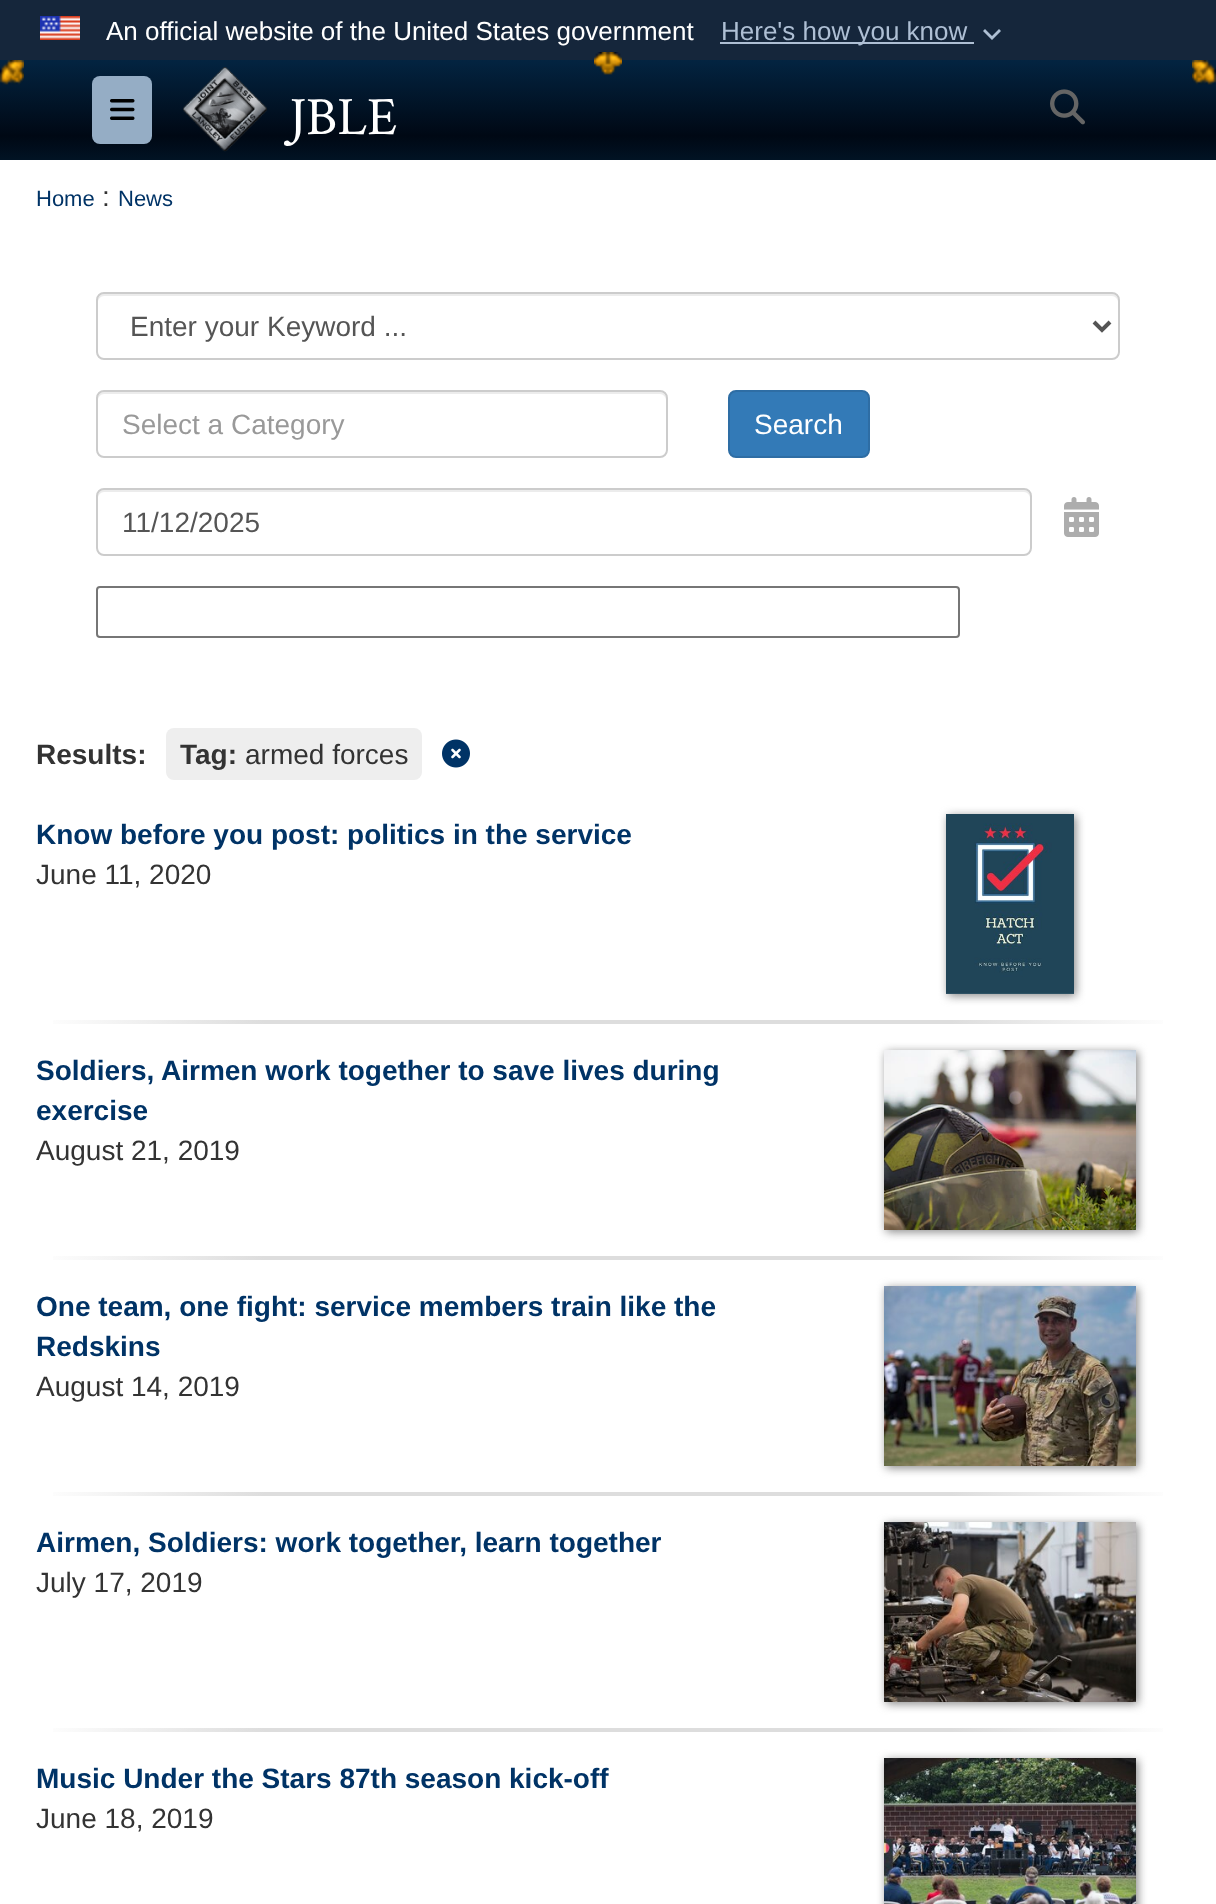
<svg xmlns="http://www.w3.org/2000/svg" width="1216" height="1904">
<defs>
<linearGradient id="g1" gradientUnits="userSpaceOnUse" x1="608" y1="60" x2="608" y2="160"><stop offset="0" stop-color="#032441"/><stop offset="0.76" stop-color="#000814"/><stop offset="1" stop-color="#011324"/></linearGradient>
<linearGradient id="g2" gradientUnits="userSpaceOnUse" x1="36" y1="1022" x2="1180" y2="1022"><stop offset="0" stop-color="#fff"/><stop offset="0.2" stop-color="#ddd"/><stop offset="0.8" stop-color="#ddd"/><stop offset="1" stop-color="#fff"/></linearGradient>
<linearGradient id="g3" gradientUnits="userSpaceOnUse" x1="36" y1="1258" x2="1180" y2="1258"><stop offset="0" stop-color="#fff"/><stop offset="0.2" stop-color="#ddd"/><stop offset="0.8" stop-color="#ddd"/><stop offset="1" stop-color="#fff"/></linearGradient>
<linearGradient id="g4" gradientUnits="userSpaceOnUse" x1="36" y1="1494" x2="1180" y2="1494"><stop offset="0" stop-color="#fff"/><stop offset="0.2" stop-color="#ddd"/><stop offset="0.8" stop-color="#ddd"/><stop offset="1" stop-color="#fff"/></linearGradient>
<linearGradient id="g5" gradientUnits="userSpaceOnUse" x1="36" y1="1730" x2="1180" y2="1730"><stop offset="0" stop-color="#fff"/><stop offset="0.2" stop-color="#ddd"/><stop offset="0.8" stop-color="#ddd"/><stop offset="1" stop-color="#fff"/></linearGradient>
</defs>
<rect width="100%" height="100%" fill="#fff"/>
<rect width="1216" height="60" fill="#15263b"/>
<image x="40" y="16" width="40" height="24" href="media/1.png"/>
<text x="106" y="40" style="font-family:Liberation Sans;font-size:26px;fill:#fff">An official website of the United States government</text>
<rect x="720" y="42" width="254" height="2" fill="#aebfd4"/>
<text x="721" y="40" style="font-family:Liberation Sans;font-size:26px;fill:#aebfd4">Here's how you know</text>
<path d="M999 29l-7 7l-7-7l-2 2l9 9l9-9z" fill="#aebfd4"/>
<rect y="60" width="1216" height="100" fill="url(#g1)"/>
<image x="594" y="52" width="28" height="23" href="media/2.png"/>
<image x="0" y="60" width="24" height="25" href="media/3.png"/>
<image x="1192" y="60" width="24" height="25" href="media/4.png"/>
<rect x="92" y="76" width="60" height="68" rx="8" fill="#95adc5"/>
<image x="110" y="99" width="25" height="21" href="media/5.png"/>
<image x="183" y="67" width="84" height="85" href="media/6.png"/>
<text x="289" y="134" style="font-family:Crimson Text;font-size:54px;fill:#fff">JBLE</text>
<image x="1050" y="89" width="35" height="36" href="media/7.png"/>
<text x="36" y="206" style="font-family:Liberation Sans;font-size:22px;fill:#036">Home</text>
<text x="102" y="206" style="font-family:Liberation Sans;font-size:28px;fill:#333">:</text>
<text x="118" y="206" style="font-family:Liberation Sans;font-size:22px;fill:#036">News</text>
<path d="M104 296h1008c3 0 6 3 6 6v-2c0-3-3-6-6-6h-1008c-3 0-6 3-6 6v2c0-3 3-6 6-6z" fill="#ececec"/>
<rect x="97" y="293" width="1022" height="66" rx="7" fill="none" stroke="#ccc" stroke-width="2"/>
<path d="M1094 322l8 8l8-8" fill="none" stroke="#555" stroke-width="4"/>
<text x="130" y="336" style="font-family:Liberation Sans;font-size:28px;fill:#555">Enter your Keyword ...</text>
<path d="M104 394h556c3 0 6 3 6 6v-2c0-3-3-6-6-6h-556c-3 0-6 3-6 6v2c0-3 3-6 6-6z" fill="#ececec"/>
<rect x="97" y="391" width="570" height="66" rx="7" fill="none" stroke="#ccc" stroke-width="2"/>
<text x="122" y="434" style="font-family:Liberation Sans;font-size:28px;fill:#999">Select a Category</text>
<rect x="729" y="391" width="140" height="66" rx="7" fill="#337ab7" stroke="#2e6da4" stroke-width="2"/>
<text x="754" y="434" style="font-family:Liberation Sans;font-size:28px;fill:#fff">Search</text>
<path d="M104 492h920c3 0 6 3 6 6v-2c0-3-3-6-6-6h-920c-3 0-6 3-6 6v2c0-3 3-6 6-6z" fill="#ececec"/>
<rect x="97" y="489" width="934" height="66" rx="7" fill="none" stroke="#ccc" stroke-width="2"/>
<text x="122" y="532" style="font-family:Liberation Sans;font-size:28px;fill:#555">11/12/2025</text>
<image x="1064" y="497" width="35" height="40" href="media/8.png"/>
<rect x="97" y="587" width="862" height="50" rx="3" fill="none" stroke="#767676" stroke-width="2"/>
<text x="36" y="764" style="font-family:Liberation Sans;font-size:28px;font-weight:bold;fill:#333">Results:</text>
<rect x="166" y="728" width="256" height="52" rx="8" fill="#eee"/>
<text x="180" y="764" style="font-family:Liberation Sans;font-size:28px;font-weight:bold;fill:#333">Tag:</text>
<text x="245" y="764" style="font-family:Liberation Sans;font-size:28px;fill:#333">armed forces</text>
<image x="442" y="739" width="28" height="29" href="media/9.png"/>
<text x="36" y="844" style="font-family:Liberation Sans;font-size:28px;font-weight:bold;fill:#036">Know before you post: politics in the service</text>
<text x="36" y="884" style="font-family:Liberation Sans;font-size:28px;fill:#333">June 11, 2020</text>
<rect x="948" y="816" width="128" height="180" fill="#888" filter="blur(5px)"/>
<image x="946" y="814" width="128" height="180" href="media/10.png"/>
<rect x="53" y="1020" width="1110" height="4" fill="url(#g2)"/>
<text x="36" y="1080" style="font-family:Liberation Sans;font-size:28px;font-weight:bold;fill:#036">Soldiers, Airmen work together to save lives during</text>
<text x="36" y="1120" style="font-family:Liberation Sans;font-size:28px;font-weight:bold;fill:#036">exercise</text>
<text x="36" y="1160" style="font-family:Liberation Sans;font-size:28px;fill:#333">August 21, 2019</text>
<rect x="886" y="1052" width="252" height="180" fill="#888" filter="blur(5px)"/>
<image x="884" y="1050" width="252" height="180" href="media/11.png"/>
<rect x="53" y="1256" width="1110" height="4" fill="url(#g3)"/>
<text x="36" y="1316" style="font-family:Liberation Sans;font-size:28px;font-weight:bold;fill:#036">One team, one fight: service members train like the</text>
<text x="36" y="1356" style="font-family:Liberation Sans;font-size:28px;font-weight:bold;fill:#036">Redskins</text>
<text x="36" y="1396" style="font-family:Liberation Sans;font-size:28px;fill:#333">August 14, 2019</text>
<rect x="886" y="1288" width="252" height="180" fill="#888" filter="blur(5px)"/>
<image x="884" y="1286" width="252" height="180" href="media/12.png"/>
<rect x="53" y="1492" width="1110" height="4" fill="url(#g4)"/>
<text x="36" y="1552" style="font-family:Liberation Sans;font-size:28px;font-weight:bold;fill:#036">Airmen, Soldiers: work together, learn together</text>
<text x="36" y="1592" style="font-family:Liberation Sans;font-size:28px;fill:#333">July 17, 2019</text>
<rect x="886" y="1524" width="252" height="180" fill="#888" filter="blur(5px)"/>
<image x="884" y="1522" width="252" height="180" href="media/13.png"/>
<rect x="53" y="1728" width="1110" height="4" fill="url(#g5)"/>
<text x="36" y="1788" style="font-family:Liberation Sans;font-size:28px;font-weight:bold;fill:#036">Music Under the Stars 87th season kick-off</text>
<text x="36" y="1828" style="font-family:Liberation Sans;font-size:28px;fill:#333">June 18, 2019</text>
<rect x="886" y="1760" width="252" height="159" fill="#888" filter="blur(5px)"/>
<image x="884" y="1758" width="252" height="146" href="media/14.png"/>
</svg>
